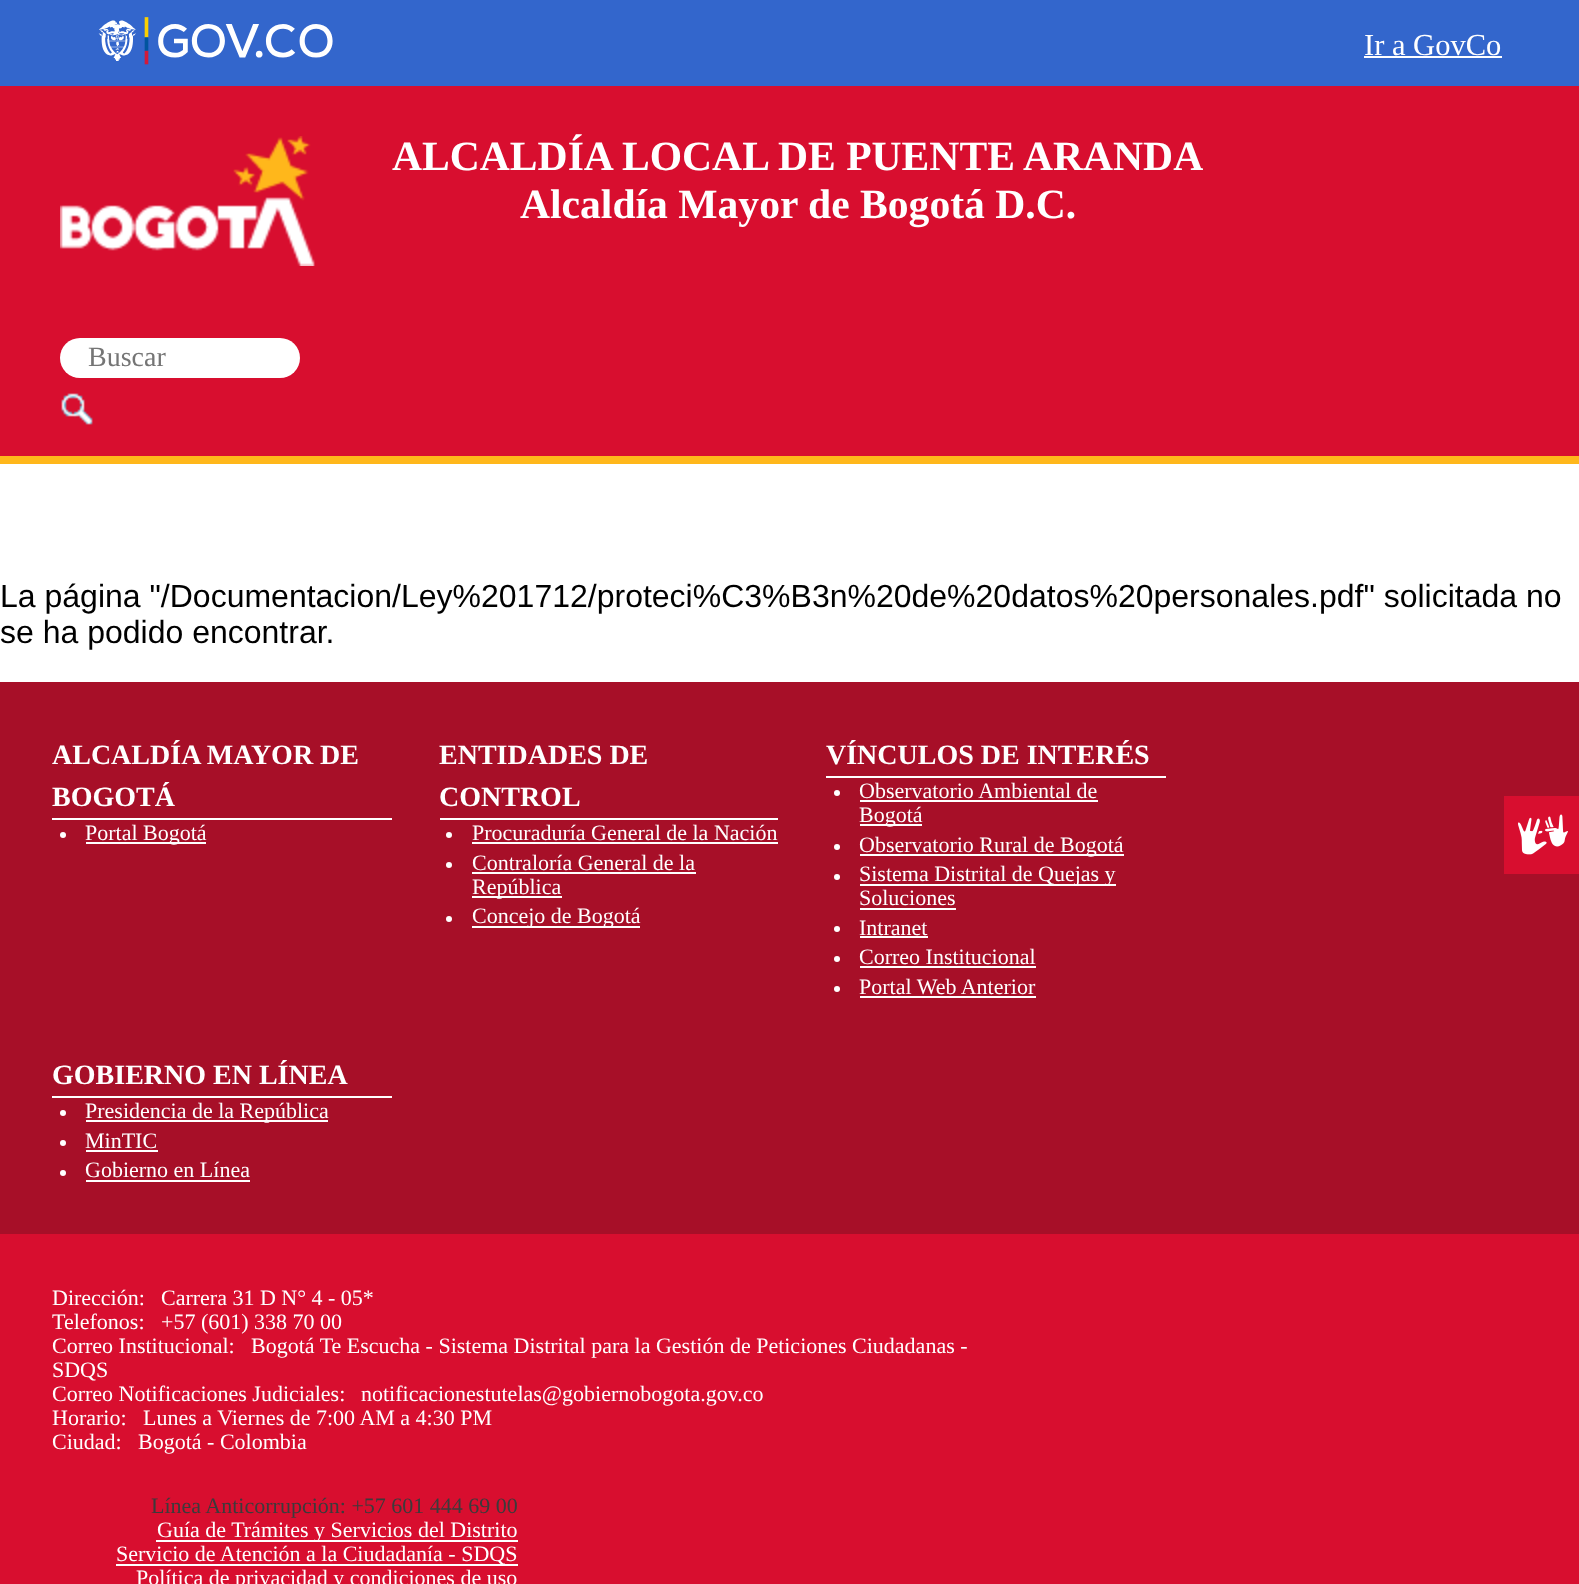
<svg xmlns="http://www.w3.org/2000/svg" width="1579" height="1584">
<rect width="100%" height="100%" fill="#fff"/>
<rect width="1579" height="86" fill="#36c"/>
<image x="98" y="17" width="235" height="48" href="media/1.png"/>
<text x="1364" y="55" style="font-family:Liberation Serif;font-size:30.5px;fill:#fff">Ir a GovCo</text>
<rect x="1364" y="56" width="138" height="2" fill="#fff"/>
<rect y="86" width="1579" height="370" fill="#d80e2f"/>
<rect y="456" width="1579" height="8" fill="#ffb71b"/>
<image x="60" y="136" width="255" height="130" href="media/2.png"/>
<text x="392" y="170" style="font-family:Liberation Serif;font-size:41.6px;font-weight:bold;fill:#fff">ALCALDÍA LOCAL DE PUENTE ARANDA</text>
<text x="520" y="218" style="font-family:Liberation Serif;font-size:41.6px;font-weight:bold;fill:#fff">Alcaldía Mayor de Bogotá D.C.</text>
<rect x="60" y="338" width="240" height="40" rx="20" fill="#fff"/>
<text x="88" y="366" style="font-family:Liberation Serif;font-size:28px;fill:#757575">Buscar</text>
<image x="61" y="393" width="32" height="32" href="media/3.png"/>
<text x="0" y="607" style="font-family:Liberation Sans;font-size:32px;fill:#000">La página "/Documentacion/Ley%201712/proteci%C3%B3n%20de%20datos%20personales.pdf" solicitada no</text>
<text x="0" y="643" style="font-family:Liberation Sans;font-size:32px;fill:#000">se ha podido encontrar.</text>
<rect y="682" width="1579" height="552" fill="#a70f28"/>
<rect x="52" y="818" width="340" height="2" fill="#fff"/>
<text x="52" y="764" style="font-family:Liberation Serif;font-size:28px;font-weight:bold;fill:#fff">ALCALDÍA MAYOR DE</text>
<text x="52" y="806" style="font-family:Liberation Serif;font-size:28px;font-weight:bold;fill:#fff">BOGOTÁ</text>
<circle cx="63" cy="835" r="3" fill="#fff"/>
<rect x="86" y="842" width="120" height="2" fill="#fff"/>
<text x="85" y="840" style="font-family:Liberation Serif;font-size:22px;fill:#fff">Portal Bogotá</text>
<rect x="440" y="818" width="338" height="2" fill="#fff"/>
<text x="439" y="764" style="font-family:Liberation Serif;font-size:28px;font-weight:bold;fill:#fff">ENTIDADES DE</text>
<text x="439" y="806" style="font-family:Liberation Serif;font-size:28px;font-weight:bold;fill:#fff">CONTROL</text>
<circle cx="449" cy="835" r="3" fill="#fff"/>
<text x="472" y="840" style="font-family:Liberation Serif;font-size:22px;fill:#fff">Procuraduría General de la Nación</text>
<rect x="472" y="842" width="306" height="2" fill="#fff"/>
<circle cx="449" cy="865" r="3" fill="#fff"/>
<text x="472" y="870" style="font-family:Liberation Serif;font-size:22px;fill:#fff">Contraloría General de la</text>
<rect x="472" y="872" width="224" height="2" fill="#fff"/>
<rect x="472" y="896" width="90" height="2" fill="#fff"/>
<text x="472" y="894" style="font-family:Liberation Serif;font-size:22px;fill:#fff">República</text>
<circle cx="449" cy="919" r="3" fill="#fff"/>
<rect x="472" y="926" width="168" height="2" fill="#fff"/>
<text x="472" y="923" style="font-family:Liberation Serif;font-size:22px;fill:#fff">Concejo de Bogotá</text>
<rect x="826" y="776" width="340" height="2" fill="#fff"/>
<text x="826" y="764" style="font-family:Liberation Serif;font-size:28px;font-weight:bold;fill:#fff">VÍNCULOS DE INTERÉS</text>
<circle cx="837" cy="793" r="3" fill="#fff"/>
<text x="859" y="798" style="font-family:Liberation Serif;font-size:22px;fill:#fff">Observatorio Ambiental de</text>
<rect x="860" y="800" width="238" height="2" fill="#fff"/>
<rect x="860" y="824" width="62" height="2" fill="#fff"/>
<text x="859" y="822" style="font-family:Liberation Serif;font-size:22px;fill:#fff">Bogotá</text>
<circle cx="837" cy="847" r="3" fill="#fff"/>
<rect x="860" y="854" width="264" height="2" fill="#fff"/>
<text x="859" y="852" style="font-family:Liberation Serif;font-size:22px;fill:#fff">Observatorio Rural de Bogotá</text>
<circle cx="837" cy="877" r="3" fill="#fff"/>
<rect x="860" y="884" width="256" height="2" fill="#fff"/>
<text x="859" y="881" style="font-family:Liberation Serif;font-size:22px;fill:#fff">Sistema Distrital de Quejas y</text>
<text x="859" y="905" style="font-family:Liberation Serif;font-size:22px;fill:#fff">Soluciones</text>
<rect x="860" y="908" width="96" height="2" fill="#fff"/>
<circle cx="837" cy="929" r="3" fill="#fff"/>
<text x="859" y="935" style="font-family:Liberation Serif;font-size:22px;fill:#fff">Intranet</text>
<rect x="860" y="936" width="68" height="2" fill="#fff"/>
<circle cx="837" cy="959" r="3" fill="#fff"/>
<text x="859" y="964" style="font-family:Liberation Serif;font-size:22px;fill:#fff">Correo Institucional</text>
<rect x="860" y="966" width="176" height="2" fill="#fff"/>
<circle cx="837" cy="989" r="3" fill="#fff"/>
<text x="859" y="994" style="font-family:Liberation Serif;font-size:22px;fill:#fff">Portal Web Anterior</text>
<rect x="860" y="996" width="176" height="2" fill="#fff"/>
<rect x="52" y="1096" width="340" height="2" fill="#fff"/>
<text x="52" y="1084" style="font-family:Liberation Serif;font-size:28px;font-weight:bold;fill:#fff">GOBIERNO EN LÍNEA</text>
<circle cx="63" cy="1113" r="3" fill="#fff"/>
<rect x="86" y="1120" width="242" height="2" fill="#fff"/>
<text x="85" y="1118" style="font-family:Liberation Serif;font-size:22px;fill:#fff">Presidencia de la República</text>
<circle cx="63" cy="1143" r="3" fill="#fff"/>
<text x="85" y="1148" style="font-family:Liberation Serif;font-size:22px;fill:#fff">MinTIC</text>
<rect x="86" y="1150" width="72" height="2" fill="#fff"/>
<circle cx="63" cy="1173" r="3" fill="#fff"/>
<text x="85" y="1177" style="font-family:Liberation Serif;font-size:22px;fill:#fff">Gobierno en Línea</text>
<rect x="86" y="1180" width="164" height="2" fill="#fff"/>
<rect y="1234" width="1579" height="350" fill="#d80e2f"/>
<rect x="1504" y="796" width="75" height="78" fill="#d80e2f"/>
<image x="1518" y="814" width="50" height="41" href="media/4.png"/>
<text x="52" y="1305" style="font-family:Liberation Serif;font-size:22px;fill:#fff">Dirección:</text>
<text x="161" y="1305" style="font-family:Liberation Serif;font-size:22px;fill:#fff">Carrera 31 D N° 4 - 05*</text>
<text x="52" y="1329" style="font-family:Liberation Serif;font-size:22px;fill:#fff">Telefonos:</text>
<text x="161" y="1329" style="font-family:Liberation Serif;font-size:22px;fill:#fff">+57 (601) 338 70 00</text>
<text x="52" y="1353" style="font-family:Liberation Serif;font-size:22px;fill:#fff">Correo Institucional:</text>
<text x="251" y="1353" style="font-family:Liberation Serif;font-size:22px;fill:#fff">Bogotá Te Escucha - Sistema Distrital para la Gestión de Peticiones Ciudadanas -</text>
<text x="52" y="1377" style="font-family:Liberation Serif;font-size:22px;fill:#fff">SDQS</text>
<text x="52" y="1401" style="font-family:Liberation Serif;font-size:22px;fill:#fff">Correo Notificaciones Judiciales:</text>
<text x="361" y="1401" style="font-family:Liberation Serif;font-size:22px;fill:#fff">notificacionestutelas@gobiernobogota.gov.co</text>
<text x="52" y="1425" style="font-family:Liberation Serif;font-size:22px;fill:#fff">Horario:</text>
<text x="143" y="1425" style="font-family:Liberation Serif;font-size:22px;fill:#fff">Lunes a Viernes de 7:00 AM a 4:30 PM</text>
<text x="52" y="1449" style="font-family:Liberation Serif;font-size:22px;fill:#fff">Ciudad:</text>
<text x="138" y="1449" style="font-family:Liberation Serif;font-size:22px;fill:#fff">Bogotá - Colombia</text>
<text x="151" y="1513" style="font-family:Liberation Serif;font-size:22px;fill:#3b3b3b">Línea Anticorrupción: +57 601 444 69 00</text>
<rect x="156" y="1540" width="362" height="2" fill="#fff"/>
<text x="157" y="1537" style="font-family:Liberation Serif;font-size:22px;fill:#fff">Guía de Trámites y Servicios del Distrito</text>
<rect x="116" y="1564" width="402" height="2" fill="#fff"/>
<text x="116" y="1561" style="font-family:Liberation Serif;font-size:22px;fill:#fff">Servicio de Atención a la Ciudadanía - SDQS</text>
<text x="136" y="1585" style="font-family:Liberation Serif;font-size:22px;fill:#fff">Política de privacidad y condiciones de uso</text>
</svg>
